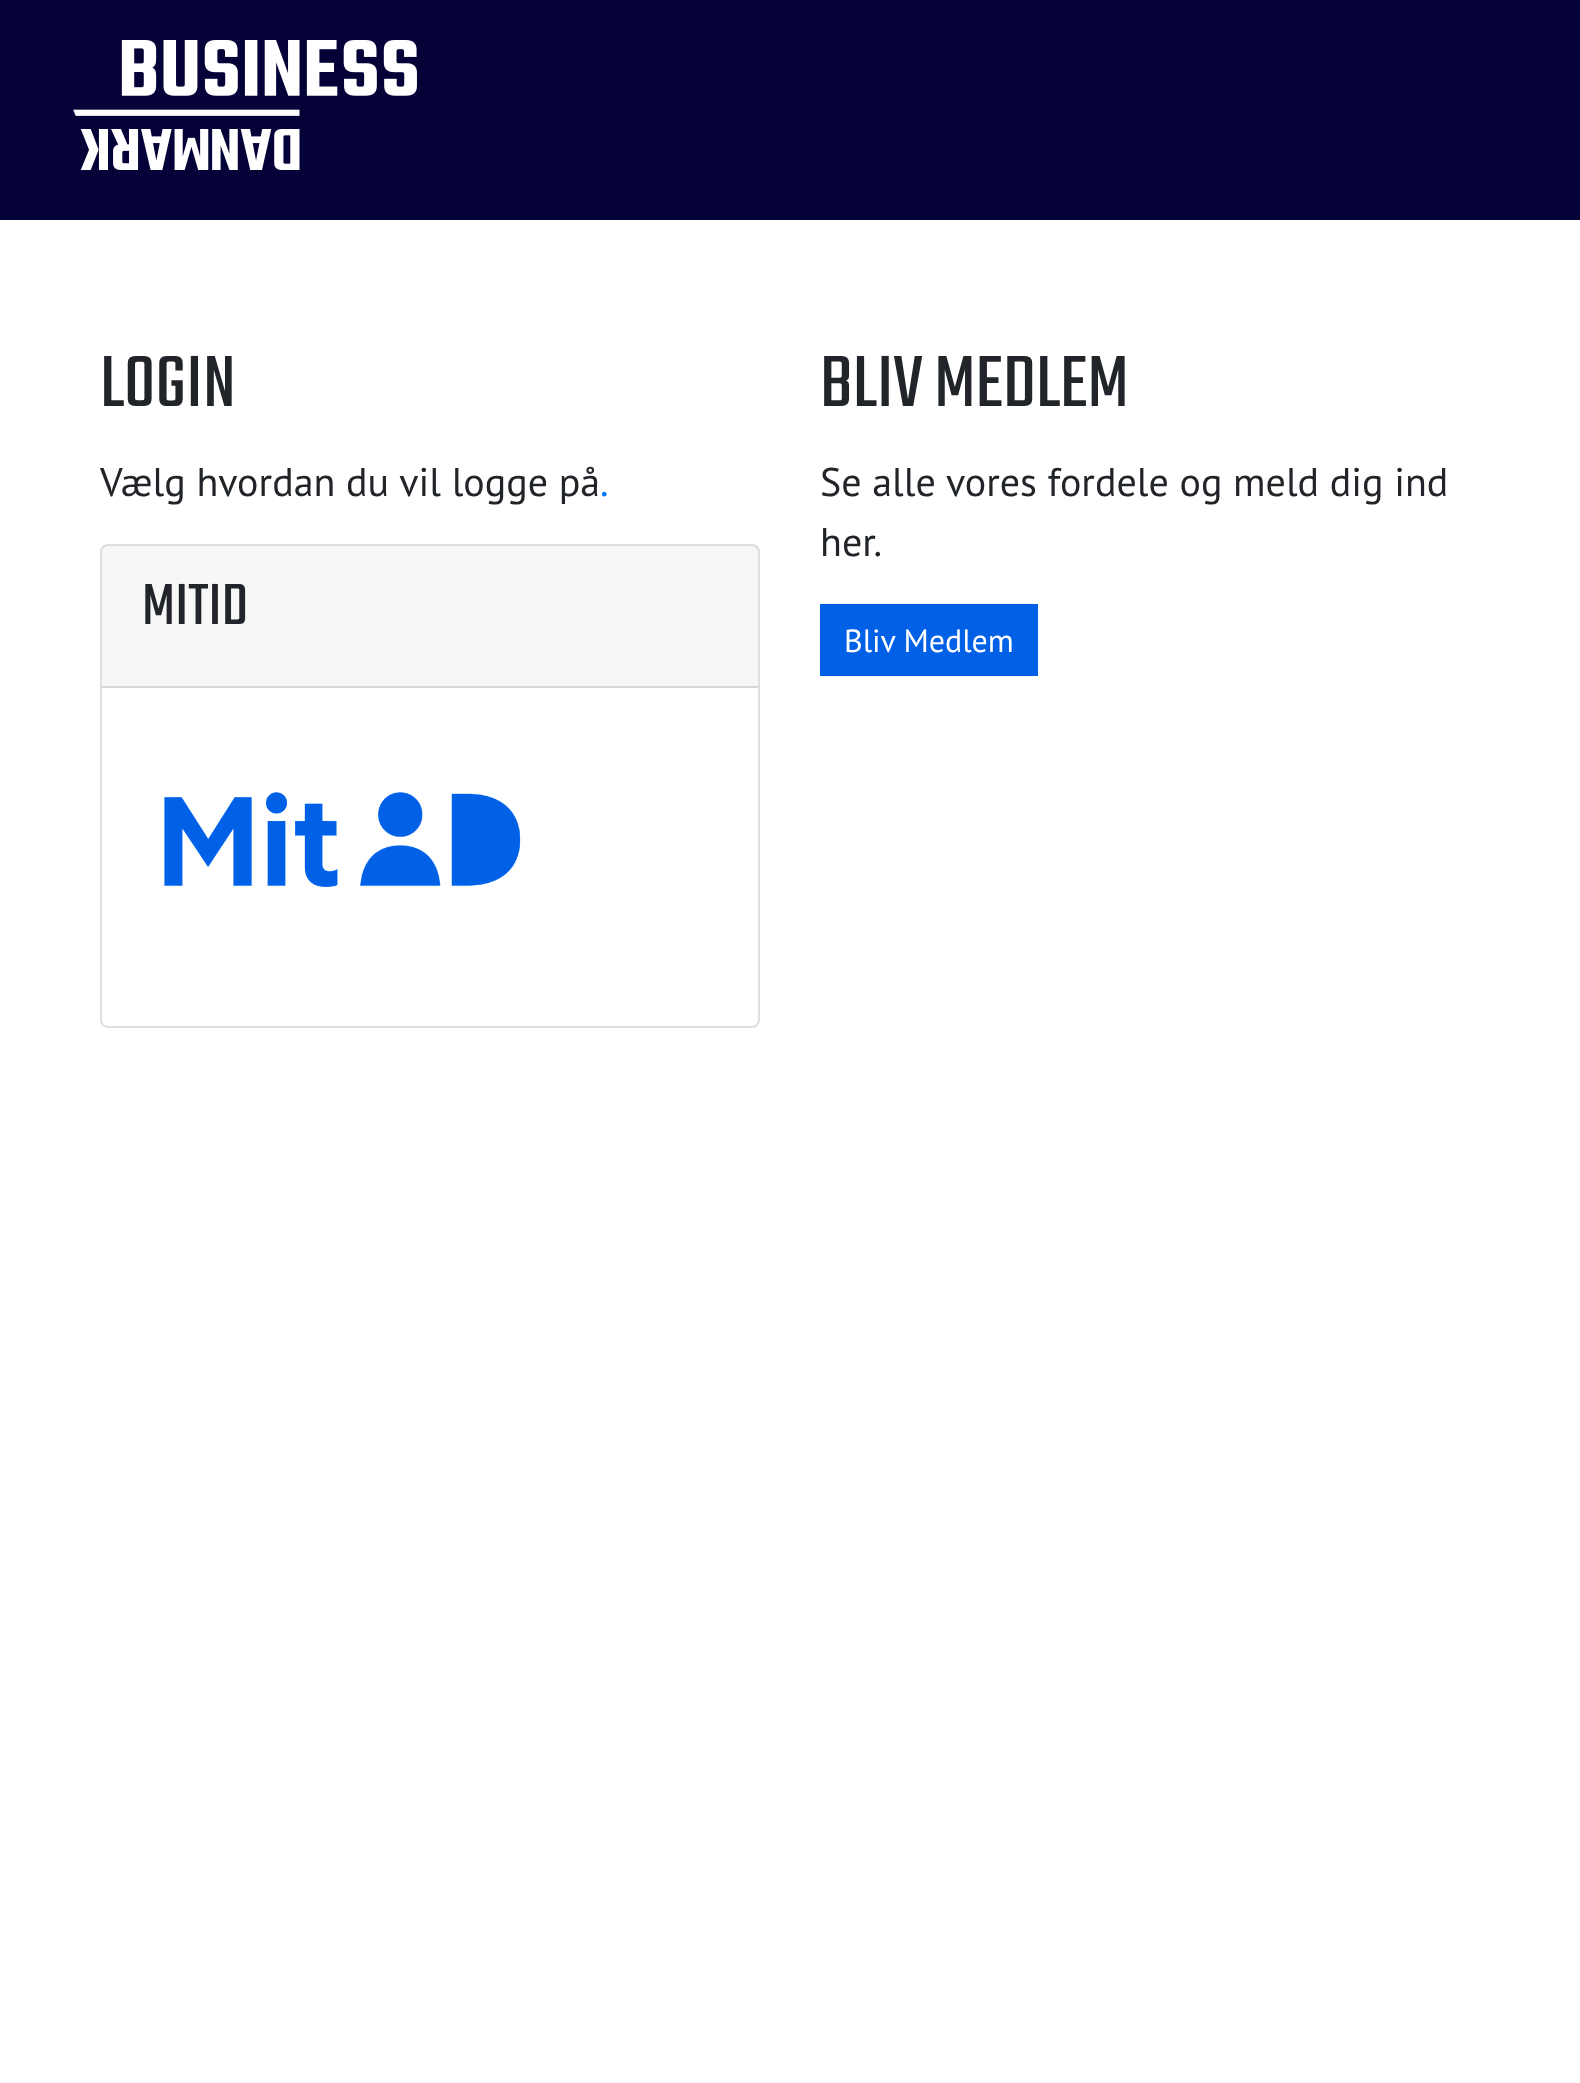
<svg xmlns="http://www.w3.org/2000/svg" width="1580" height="2083">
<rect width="100%" height="100%" fill="#fff"/>
<rect width="1580" height="220" fill="#040236"/>
<image x="73" y="40" width="344" height="130" href="media/1.png"/>
<text x="100" y="406" style="font-family:Teko;font-size:80px;fill:#212529">LOGIN</text>
<text x="100" y="496" style="font-family:PT Sans;font-size:40px;fill:#212529">Vælg hvordan du vil logge på</text>
<text x="600" y="496" style="font-family:PT Sans;font-size:40px;fill:#007bff">.</text>
<rect x="101" y="545" width="658" height="482" rx="7" fill="none" stroke="#dfdfdf" stroke-width="2"/>
<rect x="102" y="546" width="656" height="140" fill="#00000008"/>
<rect x="102" y="686" width="656" height="2" fill="#d8d8d8"/>
<text x="142" y="624" style="font-family:Teko;font-size:64px;fill:#212529">MITID</text>
<image x="164" y="792" width="357" height="95" href="media/2.png"/>
<text x="820" y="406" style="font-family:Teko;font-size:80px;fill:#212529">BLIV MEDLEM</text>
<text x="820" y="496" style="font-family:PT Sans;font-size:40px;fill:#212529">Se alle vores fordele og meld dig ind</text>
<text x="820" y="556" style="font-family:PT Sans;font-size:40px;fill:#212529">her.</text>
<rect x="820" y="604" width="218" height="72" fill="#0060e6"/>
<text x="844" y="652" style="font-family:PT Sans;font-size:32px;fill:#fff">Bliv Medlem</text>
</svg>
